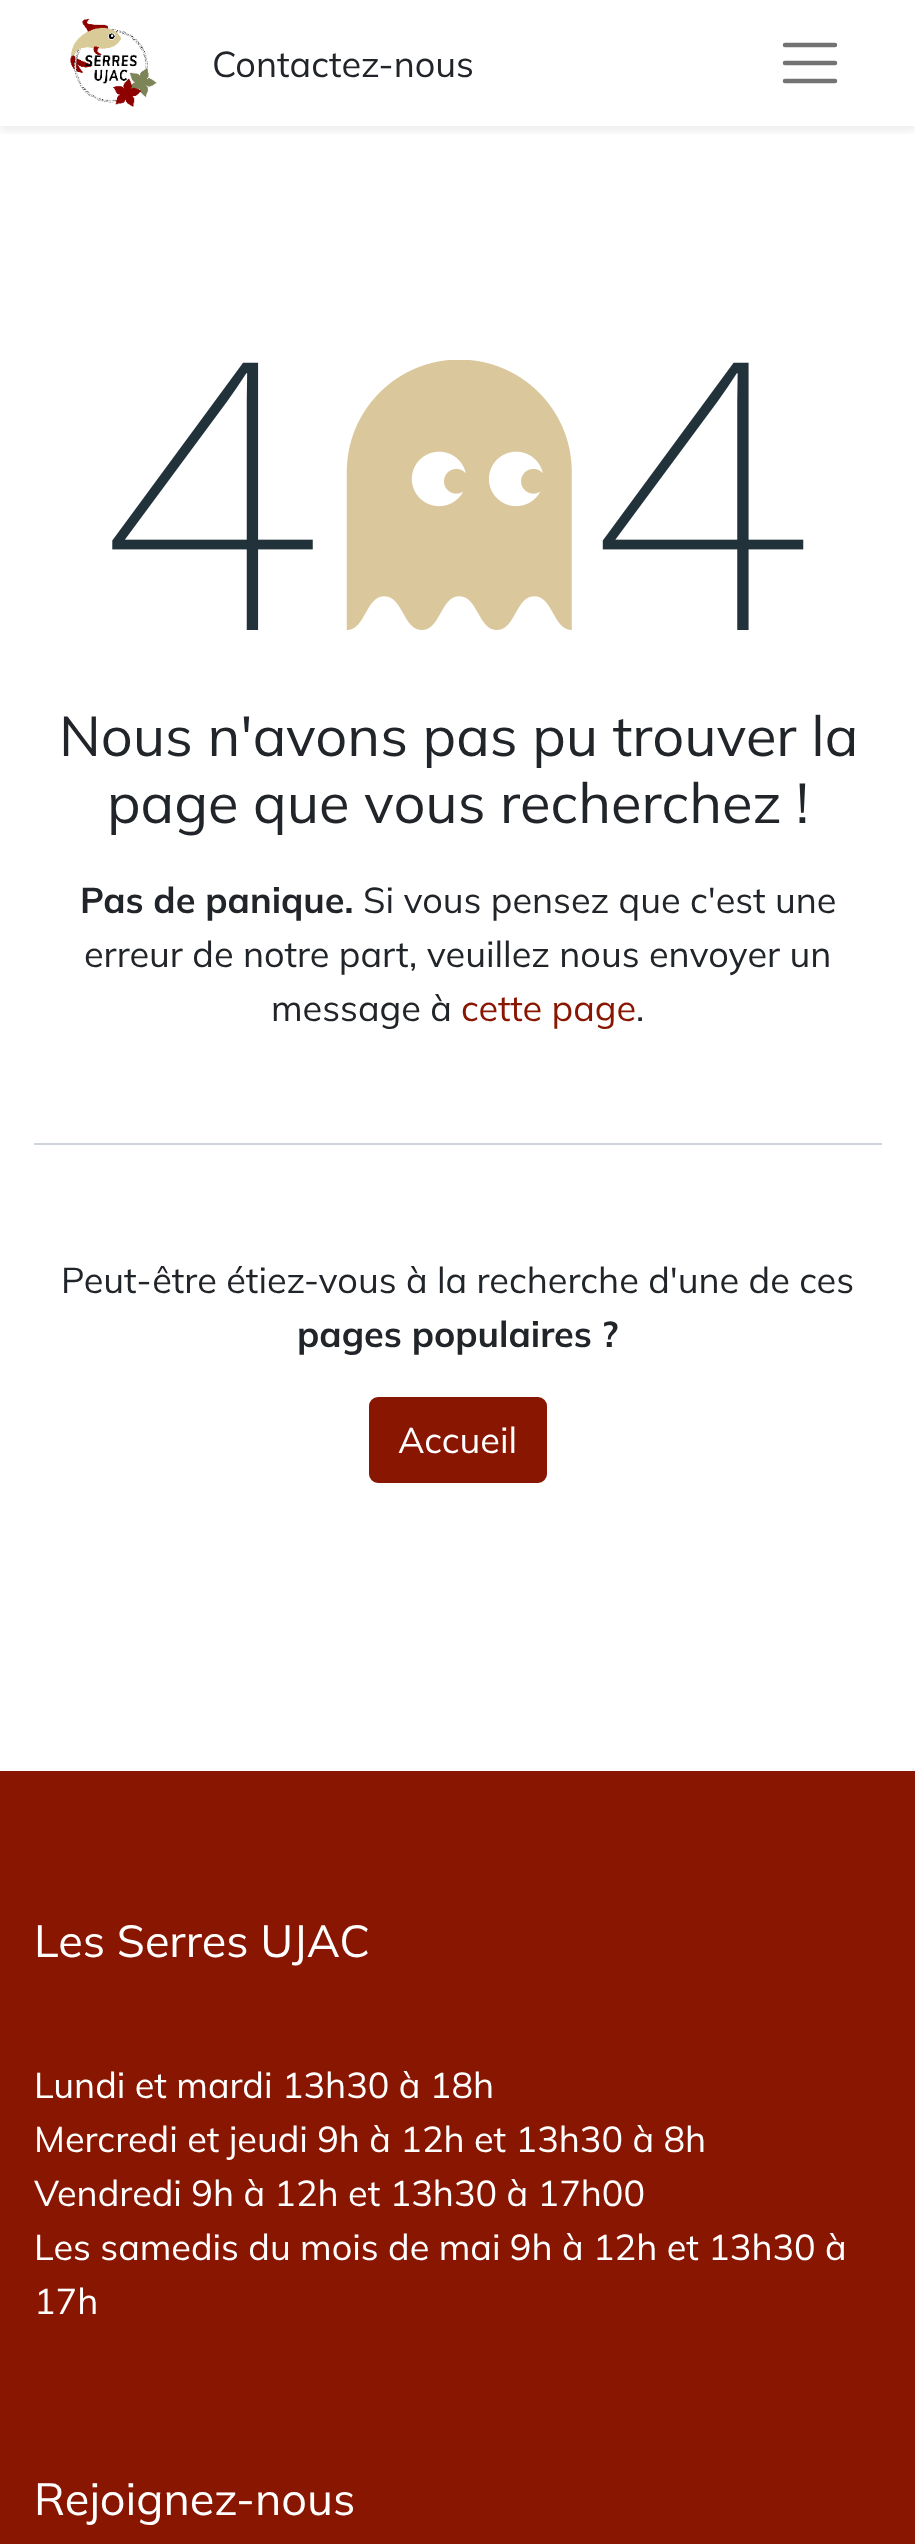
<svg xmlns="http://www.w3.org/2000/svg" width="915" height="2544">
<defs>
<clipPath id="clip1"><rect x="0" y="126" width="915" height="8"/></clipPath>
</defs>
<rect width="100%" height="100%" fill="#fff"/>
<g clip-path="url(#clip1)">
<rect y="5" width="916" height="126" fill="#00000012" filter="blur(4.5px)"/>
</g>
<image x="70" y="18" width="87" height="89" href="media/1.png"/>
<text x="212" y="77" style="font-family:Mulish;font-size:36px;fill:#212529">Contactez-nous</text>
<path d="M785 45h50m-50 18h50m-50 18h50" fill="none" stroke="#737373" stroke-width="4.5" stroke-linecap="round"/>
<image x="112" y="360" width="692" height="270" href="media/2.png"/>
<text x="59" y="756" style="font-family:Mulish;font-size:56px;fill:#212529">Nous n'avons pas pu trouver la</text>
<text x="107" y="823" style="font-family:Mulish;font-size:56px;fill:#212529">page que vous recherchez !</text>
<text x="80" y="913" style="font-family:Mulish;font-size:36px;font-weight:bold;fill:#212529">Pas de panique.</text>
<text x="363" y="913" style="font-family:Mulish;font-size:36px;fill:#212529">Si vous pensez que c'est une</text>
<text x="84" y="967" style="font-family:Mulish;font-size:36px;fill:#212529">erreur de notre part, veuillez nous envoyer un</text>
<text x="271" y="1021" style="font-family:Mulish;font-size:36px;fill:#212529">message à</text>
<text x="461" y="1021" style="font-family:Mulish;font-size:36px;fill:#881601">cette page</text>
<text x="636" y="1021" style="font-family:Mulish;font-size:36px;fill:#212529">.</text>
<rect x="34" y="1143" width="848" height="2" fill="#ced4da"/>
<text x="61" y="1293" style="font-family:Mulish;font-size:36px;fill:#212529">Peut-être étiez-vous à la recherche d'une de ces</text>
<text x="297" y="1347" style="font-family:Mulish;font-size:36px;font-weight:bold;fill:#212529">pages populaires ?</text>
<rect x="370" y="1398" width="176" height="84" rx="8" fill="#881601" stroke="#881601" stroke-width="2"/>
<text x="398" y="1453" style="font-family:Mulish;font-size:36px;fill:#fff">Accueil</text>
<rect y="1771" width="915" height="773" fill="#881601"/>
<text x="34" y="1957" style="font-family:Mulish;font-size:45px;fill:#fff">Les Serres UJAC</text>
<text x="34" y="2098" style="font-family:Mulish;font-size:36px;fill:#fff">Lundi et mardi 13h30 à 18h</text>
<text x="34" y="2152" style="font-family:Mulish;font-size:36px;fill:#fff">Mercredi et jeudi 9h à 12h et 13h30 à 8h</text>
<text x="34" y="2206" style="font-family:Mulish;font-size:36px;fill:#fff">Vendredi 9h à 12h et 13h30 à 17h00</text>
<text x="34" y="2260" style="font-family:Mulish;font-size:36px;fill:#fff">Les samedis du mois de mai 9h à 12h et 13h30 à</text>
<text x="34" y="2314" style="font-family:Mulish;font-size:36px;fill:#fff">17h</text>
<text x="34" y="2515" style="font-family:Mulish;font-size:45px;fill:#fff">Rejoignez-nous</text>
</svg>
